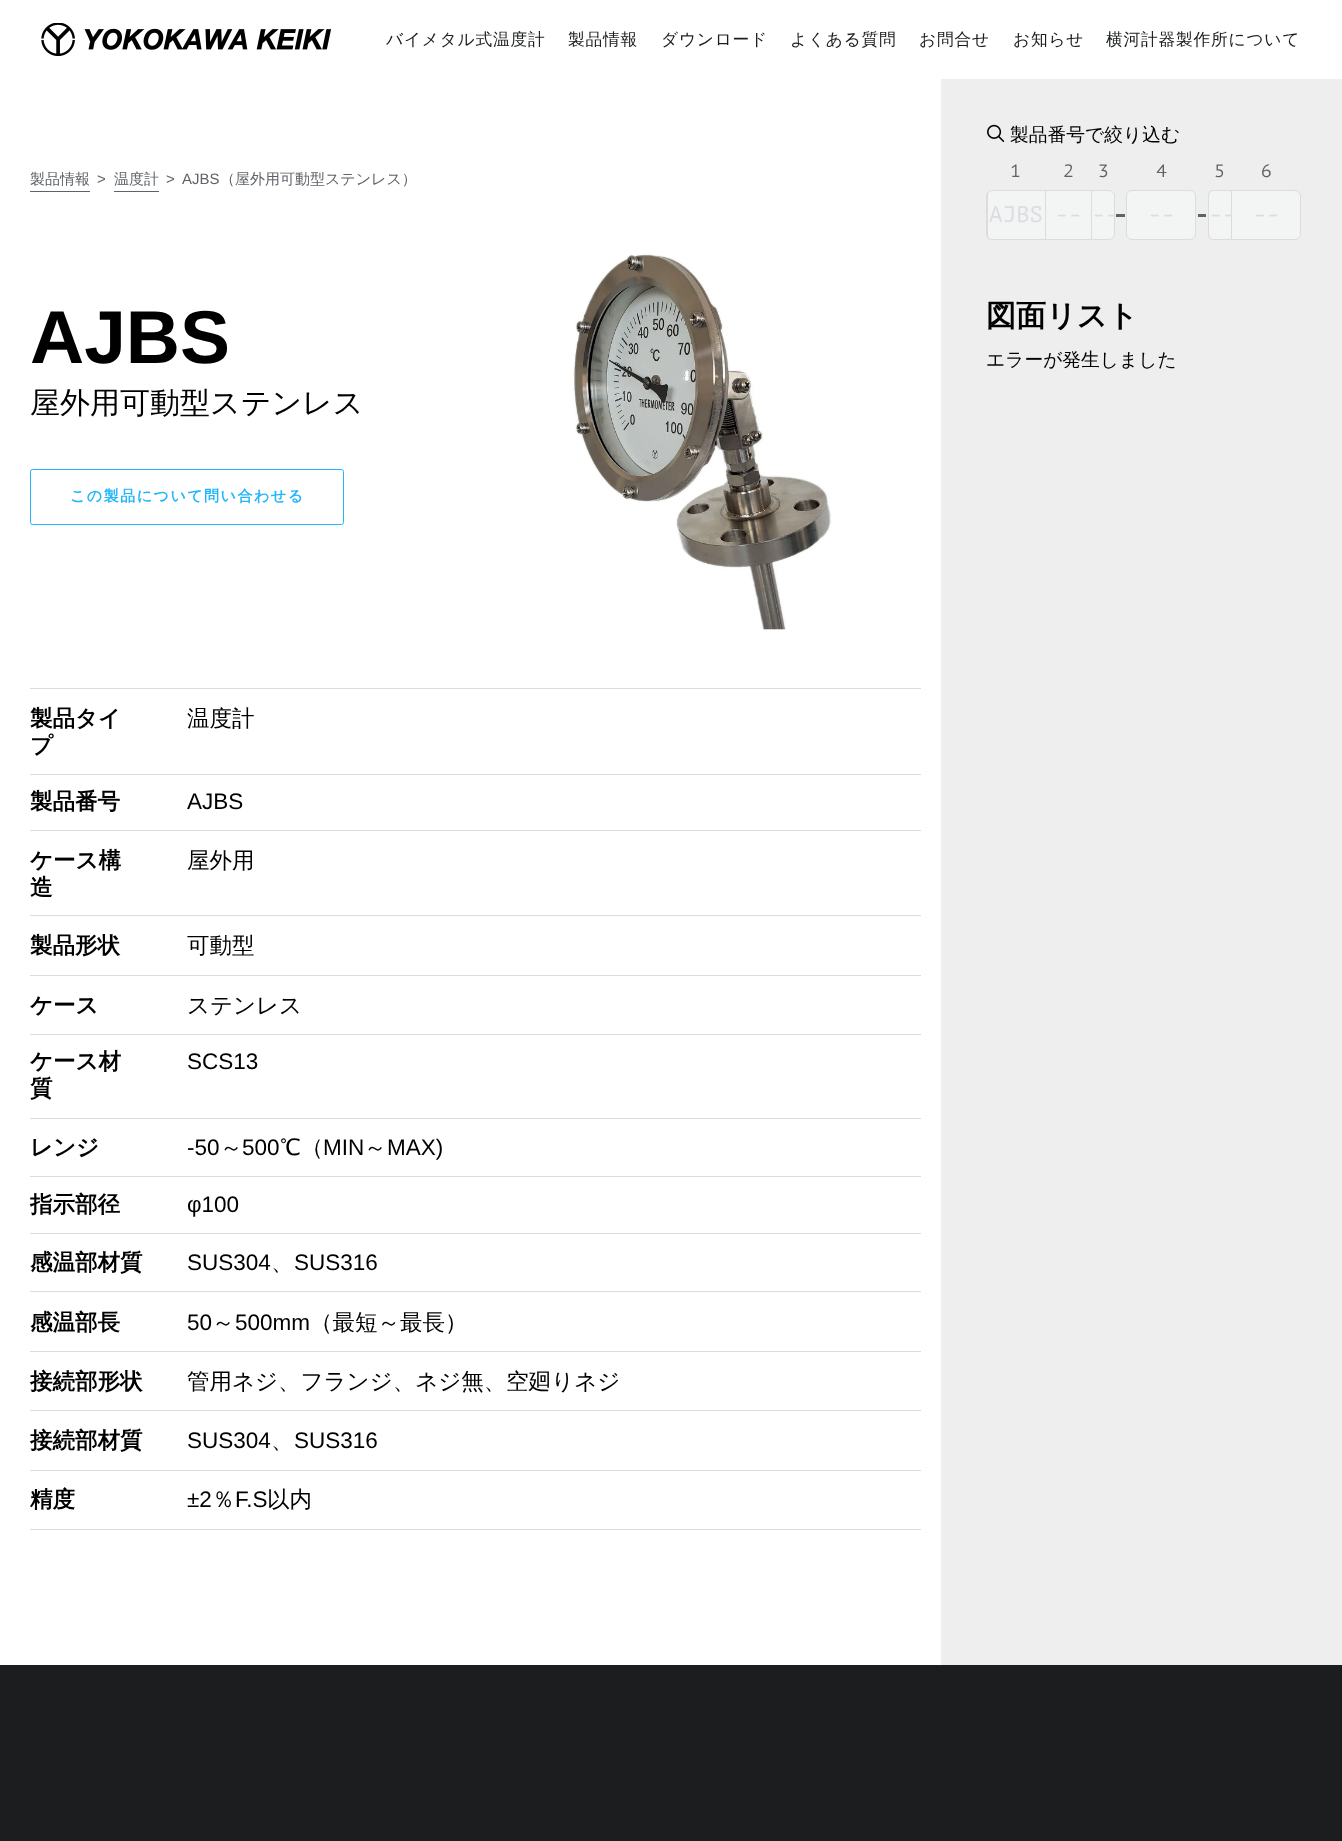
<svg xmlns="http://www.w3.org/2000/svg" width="1342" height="1841">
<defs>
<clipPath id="clip1"><rect x="1093" y="203" width="21" height="25"/></clipPath>
</defs>
<rect width="100%" height="100%" fill="#1b1d1f"/>
<rect width="1342" height="79" fill="#fff"/>
<image x="41" y="23" width="290" height="33" href="media/1.png"/>
<text x="386" y="45" style="font-family:WenQuanYi Zen Hei;font-size:16.75px;font-weight:500;letter-spacing:0.75px;fill:#1b1d1f">バイメタル式温度計</text>
<text x="568" y="45" style="font-family:WenQuanYi Zen Hei;font-size:16.75px;font-weight:500;letter-spacing:0.75px;fill:#1b1d1f">製品情報</text>
<text x="661" y="45" style="font-family:WenQuanYi Zen Hei;font-size:16.75px;font-weight:500;letter-spacing:0.75px;fill:#1b1d1f">ダウンロード</text>
<text x="790" y="45" style="font-family:WenQuanYi Zen Hei;font-size:16.75px;font-weight:500;letter-spacing:0.75px;fill:#1b1d1f">よくある質問</text>
<text x="919" y="45" style="font-family:WenQuanYi Zen Hei;font-size:16.75px;font-weight:500;letter-spacing:0.75px;fill:#1b1d1f">お問合せ</text>
<text x="1013" y="45" style="font-family:WenQuanYi Zen Hei;font-size:16.75px;font-weight:500;letter-spacing:0.75px;fill:#1b1d1f">お知らせ</text>
<text x="1106" y="45" style="font-family:WenQuanYi Zen Hei;font-size:16.75px;font-weight:500;letter-spacing:0.75px;fill:#1b1d1f">横河計器製作所について</text>
<rect y="79" width="941" height="1586" fill="#fff"/>
<text x="30" y="184" style="font-family:WenQuanYi Zen Hei;font-size:15px;font-weight:500;fill:#5f6368">製品情報</text>
<rect x="30" y="191" width="60" height="1" fill="#5f6368"/>
<text x="97" y="184" style="font-family:Liberation Sans;font-size:15px;fill:#5f6368">&gt;</text>
<text x="114" y="184" style="font-family:WenQuanYi Zen Hei;font-size:15px;font-weight:500;fill:#5f6368">温度計</text>
<rect x="114" y="191" width="45" height="1" fill="#5f6368"/>
<text x="166" y="184" style="font-family:Liberation Sans;font-size:15px;fill:#5f6368">&gt;</text>
<text x="182" y="184" style="font-family:Liberation Sans;font-size:15px;fill:#5f6368">AJBS</text>
<text x="220" y="184" style="font-family:WenQuanYi Zen Hei;font-size:15px;font-weight:500;fill:#5f6368">（屋外用可動型ステンレス）</text>
<text x="30" y="363" style="font-family:Liberation Sans;font-size:75px;font-weight:bold;fill:#000">AJBS</text>
<text x="30" y="413" style="font-family:WenQuanYi Zen Hei;font-size:30px;font-weight:500;fill:#000">屋外用可動型ステンレス</text>
<rect x="30.5" y="469.5" width="313" height="55" rx="2" fill="none" stroke="#24b6fc"/>
<text x="70" y="501" style="font-family:WenQuanYi Zen Hei;font-size:15px;font-weight:bold;letter-spacing:1.5px;fill:#24b6fc">この製品について問い合わせる</text>
<image x="573" y="254" width="259" height="376" href="media/2.png"/>
<rect x="30" y="688" width="891" height="1" fill="#dadce0"/>
<rect x="30" y="774" width="891" height="1" fill="#dadce0"/>
<text x="30" y="726" style="font-family:WenQuanYi Zen Hei;font-size:22.5px;font-weight:bold;fill:#000">製品タイ</text>
<text x="30" y="753" style="font-family:WenQuanYi Zen Hei;font-size:22.5px;font-weight:bold;fill:#000">プ</text>
<text x="187" y="726" style="font-family:WenQuanYi Zen Hei;font-size:22.5px;font-weight:500;fill:#000">温度計</text>
<rect x="30" y="830" width="891" height="1" fill="#dadce0"/>
<text x="30" y="809" style="font-family:WenQuanYi Zen Hei;font-size:22.5px;font-weight:bold;fill:#000">製品番号</text>
<text x="187" y="809" style="font-family:Liberation Sans;font-size:22.5px;fill:#000">AJBS</text>
<rect x="30" y="915" width="891" height="1" fill="#dadce0"/>
<text x="30" y="868" style="font-family:WenQuanYi Zen Hei;font-size:22.5px;font-weight:bold;fill:#000">ケース構</text>
<text x="30" y="895" style="font-family:WenQuanYi Zen Hei;font-size:22.5px;font-weight:bold;fill:#000">造</text>
<text x="187" y="868" style="font-family:WenQuanYi Zen Hei;font-size:22.5px;font-weight:500;fill:#000">屋外用</text>
<rect x="30" y="975" width="891" height="1" fill="#dadce0"/>
<text x="30" y="953" style="font-family:WenQuanYi Zen Hei;font-size:22.5px;font-weight:bold;fill:#000">製品形状</text>
<text x="187" y="953" style="font-family:WenQuanYi Zen Hei;font-size:22.5px;font-weight:500;fill:#000">可動型</text>
<rect x="30" y="1034" width="891" height="1" fill="#dadce0"/>
<text x="30" y="1013" style="font-family:WenQuanYi Zen Hei;font-size:22.5px;font-weight:bold;fill:#000">ケース</text>
<text x="187" y="1013" style="font-family:WenQuanYi Zen Hei;font-size:22.5px;font-weight:500;fill:#000">ステンレス</text>
<rect x="30" y="1118" width="891" height="1" fill="#dadce0"/>
<text x="30" y="1069" style="font-family:WenQuanYi Zen Hei;font-size:22.5px;font-weight:bold;fill:#000">ケース材</text>
<text x="30" y="1096" style="font-family:WenQuanYi Zen Hei;font-size:22.5px;font-weight:bold;fill:#000">質</text>
<text x="187" y="1069" style="font-family:Liberation Sans;font-size:22.5px;fill:#000">SCS13</text>
<rect x="30" y="1176" width="891" height="1" fill="#dadce0"/>
<text x="30" y="1155" style="font-family:WenQuanYi Zen Hei;font-size:22.5px;font-weight:bold;fill:#000">レンジ</text>
<text x="187" y="1155" style="font-family:Liberation Sans;font-size:22.5px;fill:#000">-50</text>
<text x="220" y="1155" style="font-family:WenQuanYi Zen Hei;font-size:22.5px;font-weight:500;fill:#000">～</text>
<text x="242" y="1155" style="font-family:Liberation Sans;font-size:22.5px;fill:#000">500</text>
<text x="280" y="1155" style="font-family:WenQuanYi Zen Hei;font-size:22.5px;font-weight:500;fill:#000">℃（</text>
<text x="323" y="1155" style="font-family:Liberation Sans;font-size:22.5px;fill:#000">MIN</text>
<text x="364" y="1155" style="font-family:WenQuanYi Zen Hei;font-size:22.5px;font-weight:500;fill:#000">～</text>
<text x="387" y="1155" style="font-family:Liberation Sans;font-size:22.5px;fill:#000">MAX)</text>
<rect x="30" y="1233" width="891" height="1" fill="#dadce0"/>
<text x="30" y="1212" style="font-family:WenQuanYi Zen Hei;font-size:22.5px;font-weight:bold;fill:#000">指示部径</text>
<text x="187" y="1212" style="font-family:Liberation Sans;font-size:22.5px;fill:#000">φ100</text>
<rect x="30" y="1291" width="891" height="1" fill="#dadce0"/>
<text x="30" y="1270" style="font-family:WenQuanYi Zen Hei;font-size:22.5px;font-weight:bold;fill:#000">感温部材質</text>
<text x="187" y="1270" style="font-family:Liberation Sans;font-size:22.5px;fill:#000">SUS304</text>
<text x="271" y="1270" style="font-family:WenQuanYi Zen Hei;font-size:22.5px;font-weight:500;fill:#000">、</text>
<text x="294" y="1270" style="font-family:Liberation Sans;font-size:22.5px;fill:#000">SUS316</text>
<rect x="30" y="1351" width="891" height="1" fill="#dadce0"/>
<text x="30" y="1330" style="font-family:WenQuanYi Zen Hei;font-size:22.5px;font-weight:bold;fill:#000">感温部長</text>
<text x="187" y="1330" style="font-family:Liberation Sans;font-size:22.5px;fill:#000">50</text>
<text x="212" y="1330" style="font-family:WenQuanYi Zen Hei;font-size:22.5px;font-weight:500;fill:#000">～</text>
<text x="235" y="1330" style="font-family:Liberation Sans;font-size:22.5px;fill:#000">500mm</text>
<text x="310" y="1330" style="font-family:WenQuanYi Zen Hei;font-size:22.5px;font-weight:500;fill:#000">（最短～最長）</text>
<rect x="30" y="1410" width="891" height="1" fill="#dadce0"/>
<text x="30" y="1389" style="font-family:WenQuanYi Zen Hei;font-size:22.5px;font-weight:bold;fill:#000">接続部形状</text>
<text x="187" y="1389" style="font-family:WenQuanYi Zen Hei;font-size:22.5px;font-weight:500;fill:#000">管用ネジ、フランジ、ネジ無、空廻りネジ</text>
<rect x="30" y="1470" width="891" height="1" fill="#dadce0"/>
<text x="30" y="1448" style="font-family:WenQuanYi Zen Hei;font-size:22.5px;font-weight:bold;fill:#000">接続部材質</text>
<text x="187" y="1448" style="font-family:Liberation Sans;font-size:22.5px;fill:#000">SUS304</text>
<text x="271" y="1448" style="font-family:WenQuanYi Zen Hei;font-size:22.5px;font-weight:500;fill:#000">、</text>
<text x="294" y="1448" style="font-family:Liberation Sans;font-size:22.5px;fill:#000">SUS316</text>
<rect x="30" y="1529" width="891" height="1" fill="#dadce0"/>
<text x="30" y="1507" style="font-family:WenQuanYi Zen Hei;font-size:22.5px;font-weight:bold;fill:#000">精度</text>
<text x="187" y="1507" style="font-family:Liberation Sans;font-size:22.5px;fill:#000">±2</text>
<text x="212" y="1507" style="font-family:WenQuanYi Zen Hei;font-size:22.5px;font-weight:500;fill:#000">％</text>
<text x="235" y="1507" style="font-family:Liberation Sans;font-size:22.5px;fill:#000">F.S</text>
<text x="267" y="1507" style="font-family:WenQuanYi Zen Hei;font-size:22.5px;font-weight:500;fill:#000">以内</text>
<rect x="941" y="79" width="401" height="1586" fill="#eee"/>
<image x="987" y="124" width="18" height="18" href="media/3.png"/>
<text x="1010" y="141" style="font-family:WenQuanYi Zen Hei;font-size:18.75px;font-weight:500;fill:#000">製品番号で絞り込む</text>
<text x="1010" y="177" style="font-family:PT Mono;font-size:18px;fill:#5f6368">1</text>
<path d="M993 191h52v48h-52c-3 0-5-2-5-5v-38c0-3 2-5 5-5z" fill="#f3f4f4"/>
<path d="M992 190h53v50h-53c-3 0-6-3-6-6v-38c0-3 3-6 6-6zm0 1h53v48h-53c-3 0-4-2-4-5v-38c0-3 1-5 4-5z" fill="#dadce0" fill-rule="evenodd"/>
<text x="989" y="222" style="font-family:PT Mono;font-size:22.5px;fill:#dadce0">AJBS</text>
<text x="1063" y="177" style="font-family:PT Mono;font-size:18px;fill:#5f6368">2</text>
<rect x="1046" y="191" width="45" height="48" fill="#f3f4f4"/>
<rect x="1045" y="190" width="46" height="1" fill="#dadce0"/>
<rect x="1045" y="239" width="46" height="1" fill="#dadce0"/>
<rect x="1045" y="190" width="1" height="50" fill="#dadce0"/>
<text x="1055" y="222" style="font-family:PT Mono;font-size:22.5px;fill:#dadce0">--</text>
<text x="1098" y="177" style="font-family:PT Mono;font-size:18px;fill:#5f6368">3</text>
<path d="M1091.5 190.5h17.5c3 0 5.5 2.5 5.5 5.5v38c0 3-2.5 5.5-5.5 5.5h-17.5z" fill="#f3f4f4" stroke="#dadce0"/>
<g clip-path="url(#clip1)">
<text x="1092" y="222" style="font-family:PT Mono;font-size:22.5px;fill:#dadce0">--</text>
</g>
<rect x="1116" y="214" width="9" height="3" fill="#5f6368"/>
<text x="1156" y="177" style="font-family:PT Mono;font-size:18px;fill:#5f6368">4</text>
<rect x="1126.5" y="190.5" width="69" height="49" rx="5.5" fill="#f3f4f4" stroke="#dadce0"/>
<text x="1148" y="222" style="font-family:PT Mono;font-size:22.5px;fill:#dadce0">--</text>
<rect x="1198" y="214" width="8" height="3" fill="#5f6368"/>
<text x="1214" y="177" style="font-family:PT Mono;font-size:18px;fill:#5f6368">5</text>
<path d="M1214 191h17v48h-17c-3 0-5-2-5-5v-38c0-3 2-5 5-5z" fill="#f3f4f4"/>
<path d="M1213 190h18v50h-18c-3 0-5-3-5-6v-38c0-3 2-6 5-6zm0 1h18v48h-18c-2 0-4-2-4-5v-38c0-3 2-5 4-5z" fill="#dadce0" fill-rule="evenodd"/>
<text x="1209" y="222" style="font-family:PT Mono;font-size:22.5px;fill:#dadce0">--</text>
<text x="1261" y="177" style="font-family:PT Mono;font-size:18px;fill:#5f6368">6</text>
<path d="M1231.5 190.5h63.5c3 0 5.5 2.5 5.5 5.5v38c0 3-2.5 5.5-5.5 5.5h-63.5z" fill="#f3f4f4" stroke="#dadce0"/>
<text x="1253" y="222" style="font-family:PT Mono;font-size:22.5px;fill:#dadce0">--</text>
<text x="986" y="326" style="font-family:WenQuanYi Zen Hei;font-size:30px;font-weight:bold;fill:#000">図面リスト</text>
<text x="986" y="366" style="font-family:WenQuanYi Zen Hei;font-size:18.75px;font-weight:500;fill:#000">エラーが発生しました</text>
</svg>
